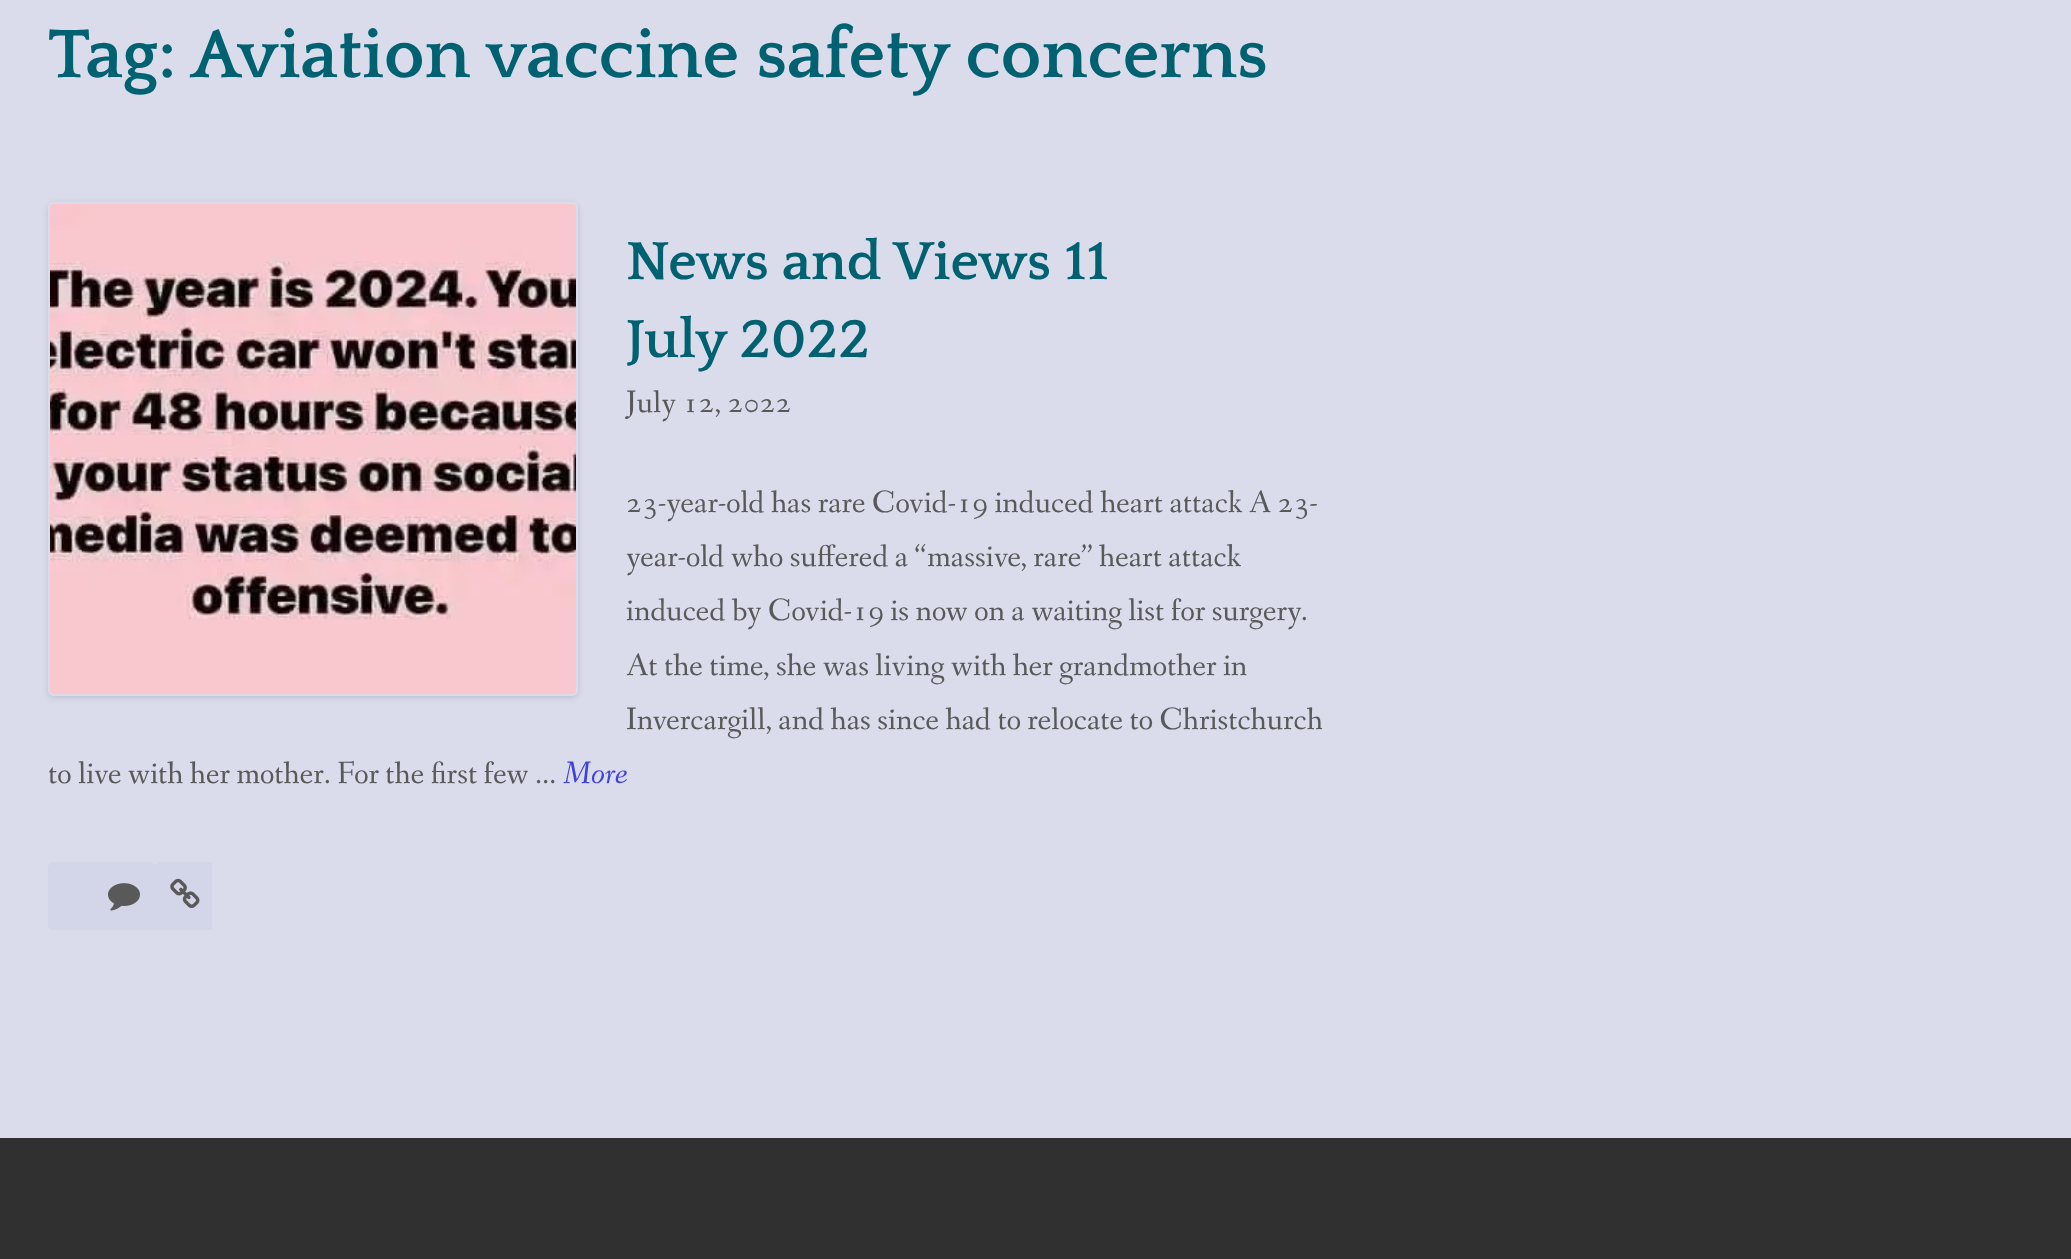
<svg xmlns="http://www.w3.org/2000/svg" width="2071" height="1259">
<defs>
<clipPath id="clip1"><path d="M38 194h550v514h-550zm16 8h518c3.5 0 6 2.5 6 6v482c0 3.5-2.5 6-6 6h-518c-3.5 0-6-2.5-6-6v-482c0-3.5 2.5-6 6-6z" clip-rule="evenodd"/></clipPath>
</defs>
<rect width="100%" height="100%" fill="#dadcec"/>
<text x="48" y="77" style="font-family:Quattrocento;font-size:72px;font-weight:bold;fill:#006170">Tag:</text>
<text x="191" y="77" style="font-family:Quattrocento;font-size:72px;font-weight:bold;fill:#006170">Aviation vaccine safety concerns</text>
<g clip-path="url(#clip1)">
<rect x="48" y="204" width="530" height="494" rx="6" fill="#0000001f" filter="blur(3px)"/>
</g>
<rect x="49" y="203" width="528" height="492" rx="5" fill="none" stroke="#dddddd4d" stroke-width="2"/>
<image x="50" y="204" width="526" height="490" href="media/1.png"/>
<text x="626" y="279" style="font-family:Quattrocento;font-size:56px;font-weight:bold;fill:#006170">News and Views 11</text>
<text x="626" y="357" style="font-family:Quattrocento;font-size:56px;font-weight:bold;fill:#006170">July 2022</text>
<text x="626" y="412" style="font-family:Fanwood Text;font-size:32px;fill:#595959">July 12, 2022</text>
<text x="626" y="512" style="font-family:Fanwood Text;font-size:32px;fill:#595959">23-year-old has rare Covid-19 induced heart attack A 23-</text>
<text x="626" y="566" style="font-family:Fanwood Text;font-size:32px;fill:#595959">year-old who suffered a “massive, rare” heart attack</text>
<text x="626" y="620" style="font-family:Fanwood Text;font-size:32px;fill:#595959">induced by Covid-19 is now on a waiting list for surgery.</text>
<text x="626" y="675" style="font-family:Fanwood Text;font-size:32px;fill:#595959">At the time, she was living with her grandmother in</text>
<text x="626" y="729" style="font-family:Fanwood Text;font-size:32px;fill:#595959">Invercargill, and has since had to relocate to Christchurch</text>
<text x="48" y="783" style="font-family:Fanwood Text;font-size:32px;fill:#595959">to live with her mother. For the first few …</text>
<text x="563" y="783" style="font-family:Fanwood Text;font-size:32px;font-style:italic;fill:#4043d7">More</text>
<path d="M54 862h98v68h-98c-3.5 0-6-2.5-6-6v-56c0-3.5 2.5-6 6-6z" fill="#d3d5e8"/>
<rect x="152" y="864" width="6" height="66" fill="#d3d5e8"/>
<rect x="158" y="862" width="54" height="68" fill="#d3d5e8"/>
<image x="108" y="883" width="32" height="28" href="media/2.png"/>
<image x="170" y="878" width="30" height="30" href="media/3.png"/>
<rect y="1138" width="2071" height="121" fill="#303030"/>
</svg>
